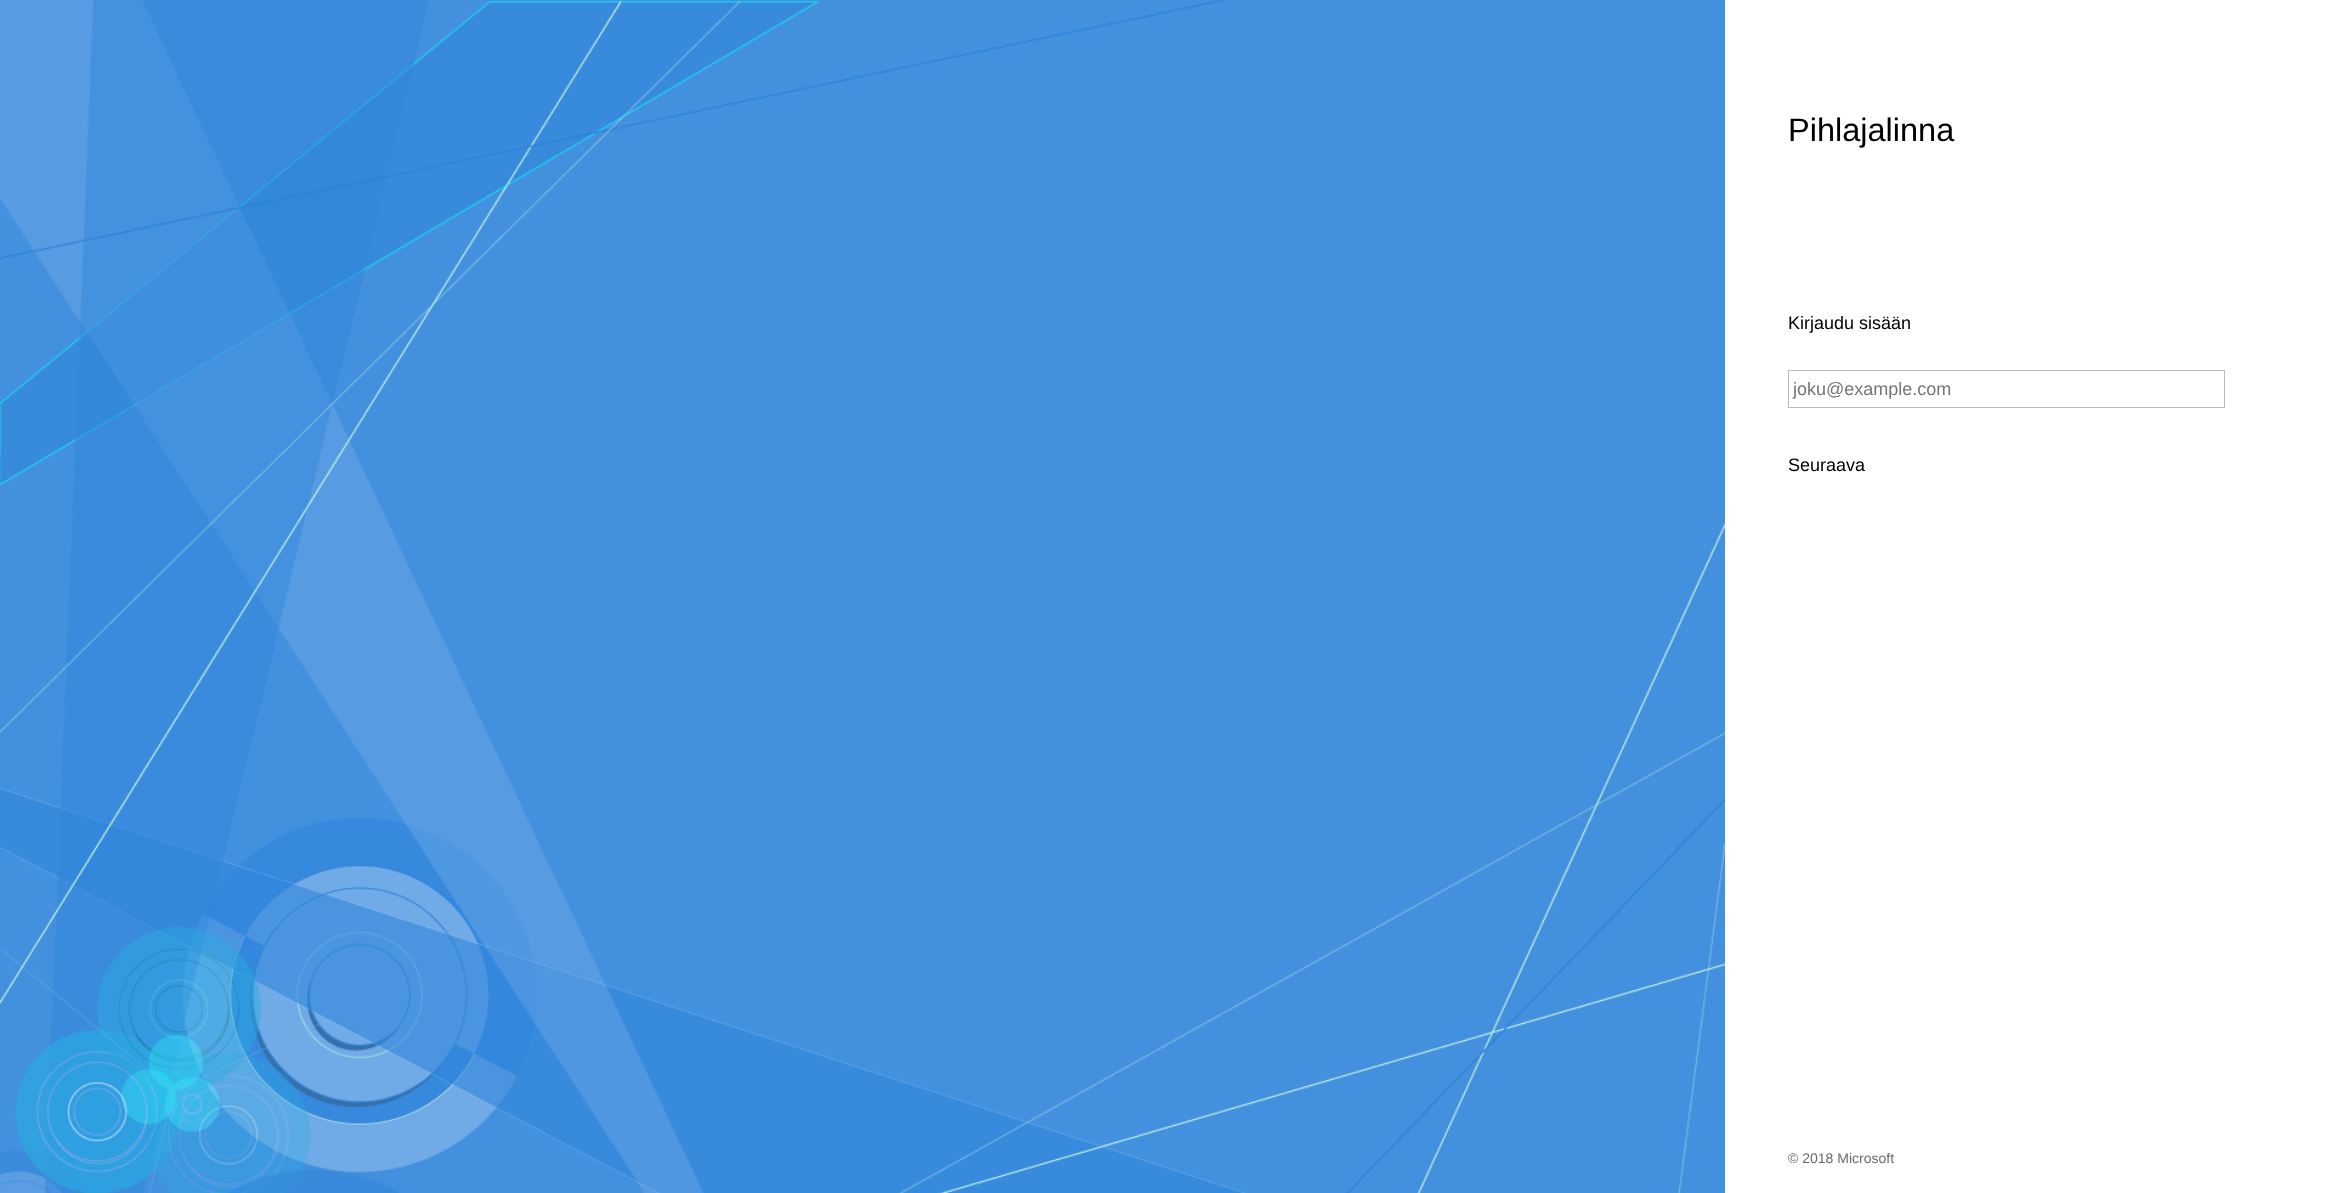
<svg xmlns="http://www.w3.org/2000/svg" width="2350" height="1193">
<rect width="100%" height="100%" fill="#fff"/>
<image x="0" y="0" width="1725" height="1193" href="media/1.png"/>
<text x="1788" y="141" style="font-family:Liberation Sans;font-size:32.5px;fill:#000">Pihlajalinna</text>
<text x="1788" y="329" style="font-family:Liberation Sans;font-size:18px;fill:#000">Kirjaudu sisään</text>
<rect x="1788.5" y="370.5" width="436" height="37" fill="none" stroke="#bababa"/>
<text x="1793" y="395" style="font-family:Liberation Sans;font-size:18px;fill:#757575">joku@example.com</text>
<text x="1788" y="471" style="font-family:Liberation Sans;font-size:18px;fill:#000">Seuraava</text>
<text x="1788" y="1163" style="font-family:Liberation Sans;font-size:14px;fill:#696969">© 2018 Microsoft</text>
</svg>
